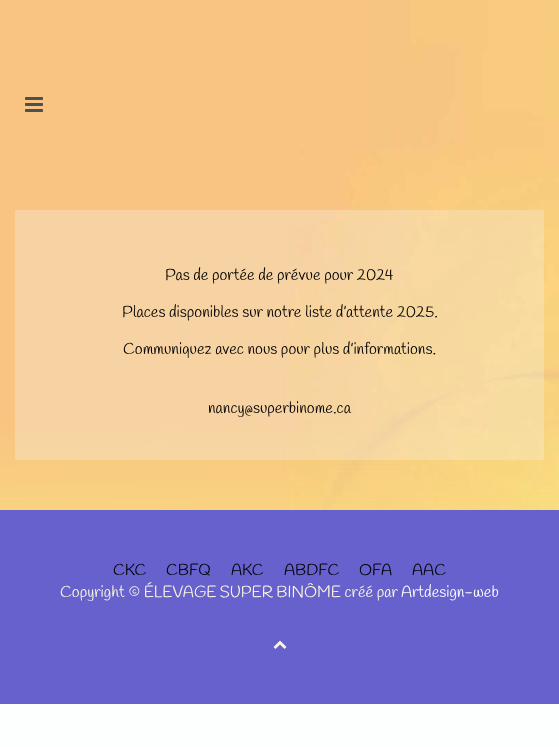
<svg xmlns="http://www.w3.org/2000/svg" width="559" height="747">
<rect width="100%" height="100%" fill="#fdfefe"/>
<rect y="510" width="559" height="194" fill="#6661cd"/>
<image x="0" y="0" width="559" height="510" href="media/1.png"/>
<image x="25" y="97" width="18" height="15" href="media/2.png"/>
<rect x="15" y="210" width="529" height="250" fill="#f6f8f947"/>
<text x="165" y="280" style="font-family:Handlee;font-size:16px;fill:#000">Pas de portée de prévue pour 2024</text>
<text x="122" y="317" style="font-family:Handlee;font-size:16px;fill:#000">Places disponibles sur notre liste d’attente 2025.</text>
<text x="123" y="354" style="font-family:Handlee;font-size:16px;fill:#000">Communiquez avec nous pour plus d’informations.</text>
<text x="208" y="413" style="font-family:Handlee;font-size:16px;fill:#000">nancy@superbinome.ca</text>
<text x="113" y="575" style="font-family:Handlee;font-size:16px;fill:#000">CKC</text>
<text x="166" y="575" style="font-family:Handlee;font-size:16px;fill:#000">CBFQ</text>
<text x="231" y="575" style="font-family:Handlee;font-size:16px;fill:#000">AKC</text>
<text x="284" y="575" style="font-family:Handlee;font-size:16px;fill:#000">ABDFC</text>
<text x="359" y="575" style="font-family:Handlee;font-size:16px;fill:#000">OFA</text>
<text x="412" y="575" style="font-family:Handlee;font-size:16px;fill:#000">AAC</text>
<text x="60" y="597" style="font-family:Handlee;font-size:16px;fill:#fcf6e0">Copyright © ÉLEVAGE SUPER BINÔME créé par</text>
<text x="401" y="597" style="font-family:Handlee;font-size:16px;fill:#fdfdff">Artdesign-web</text>
<image x="273" y="640" width="14" height="9" href="media/3.png"/>
</svg>
